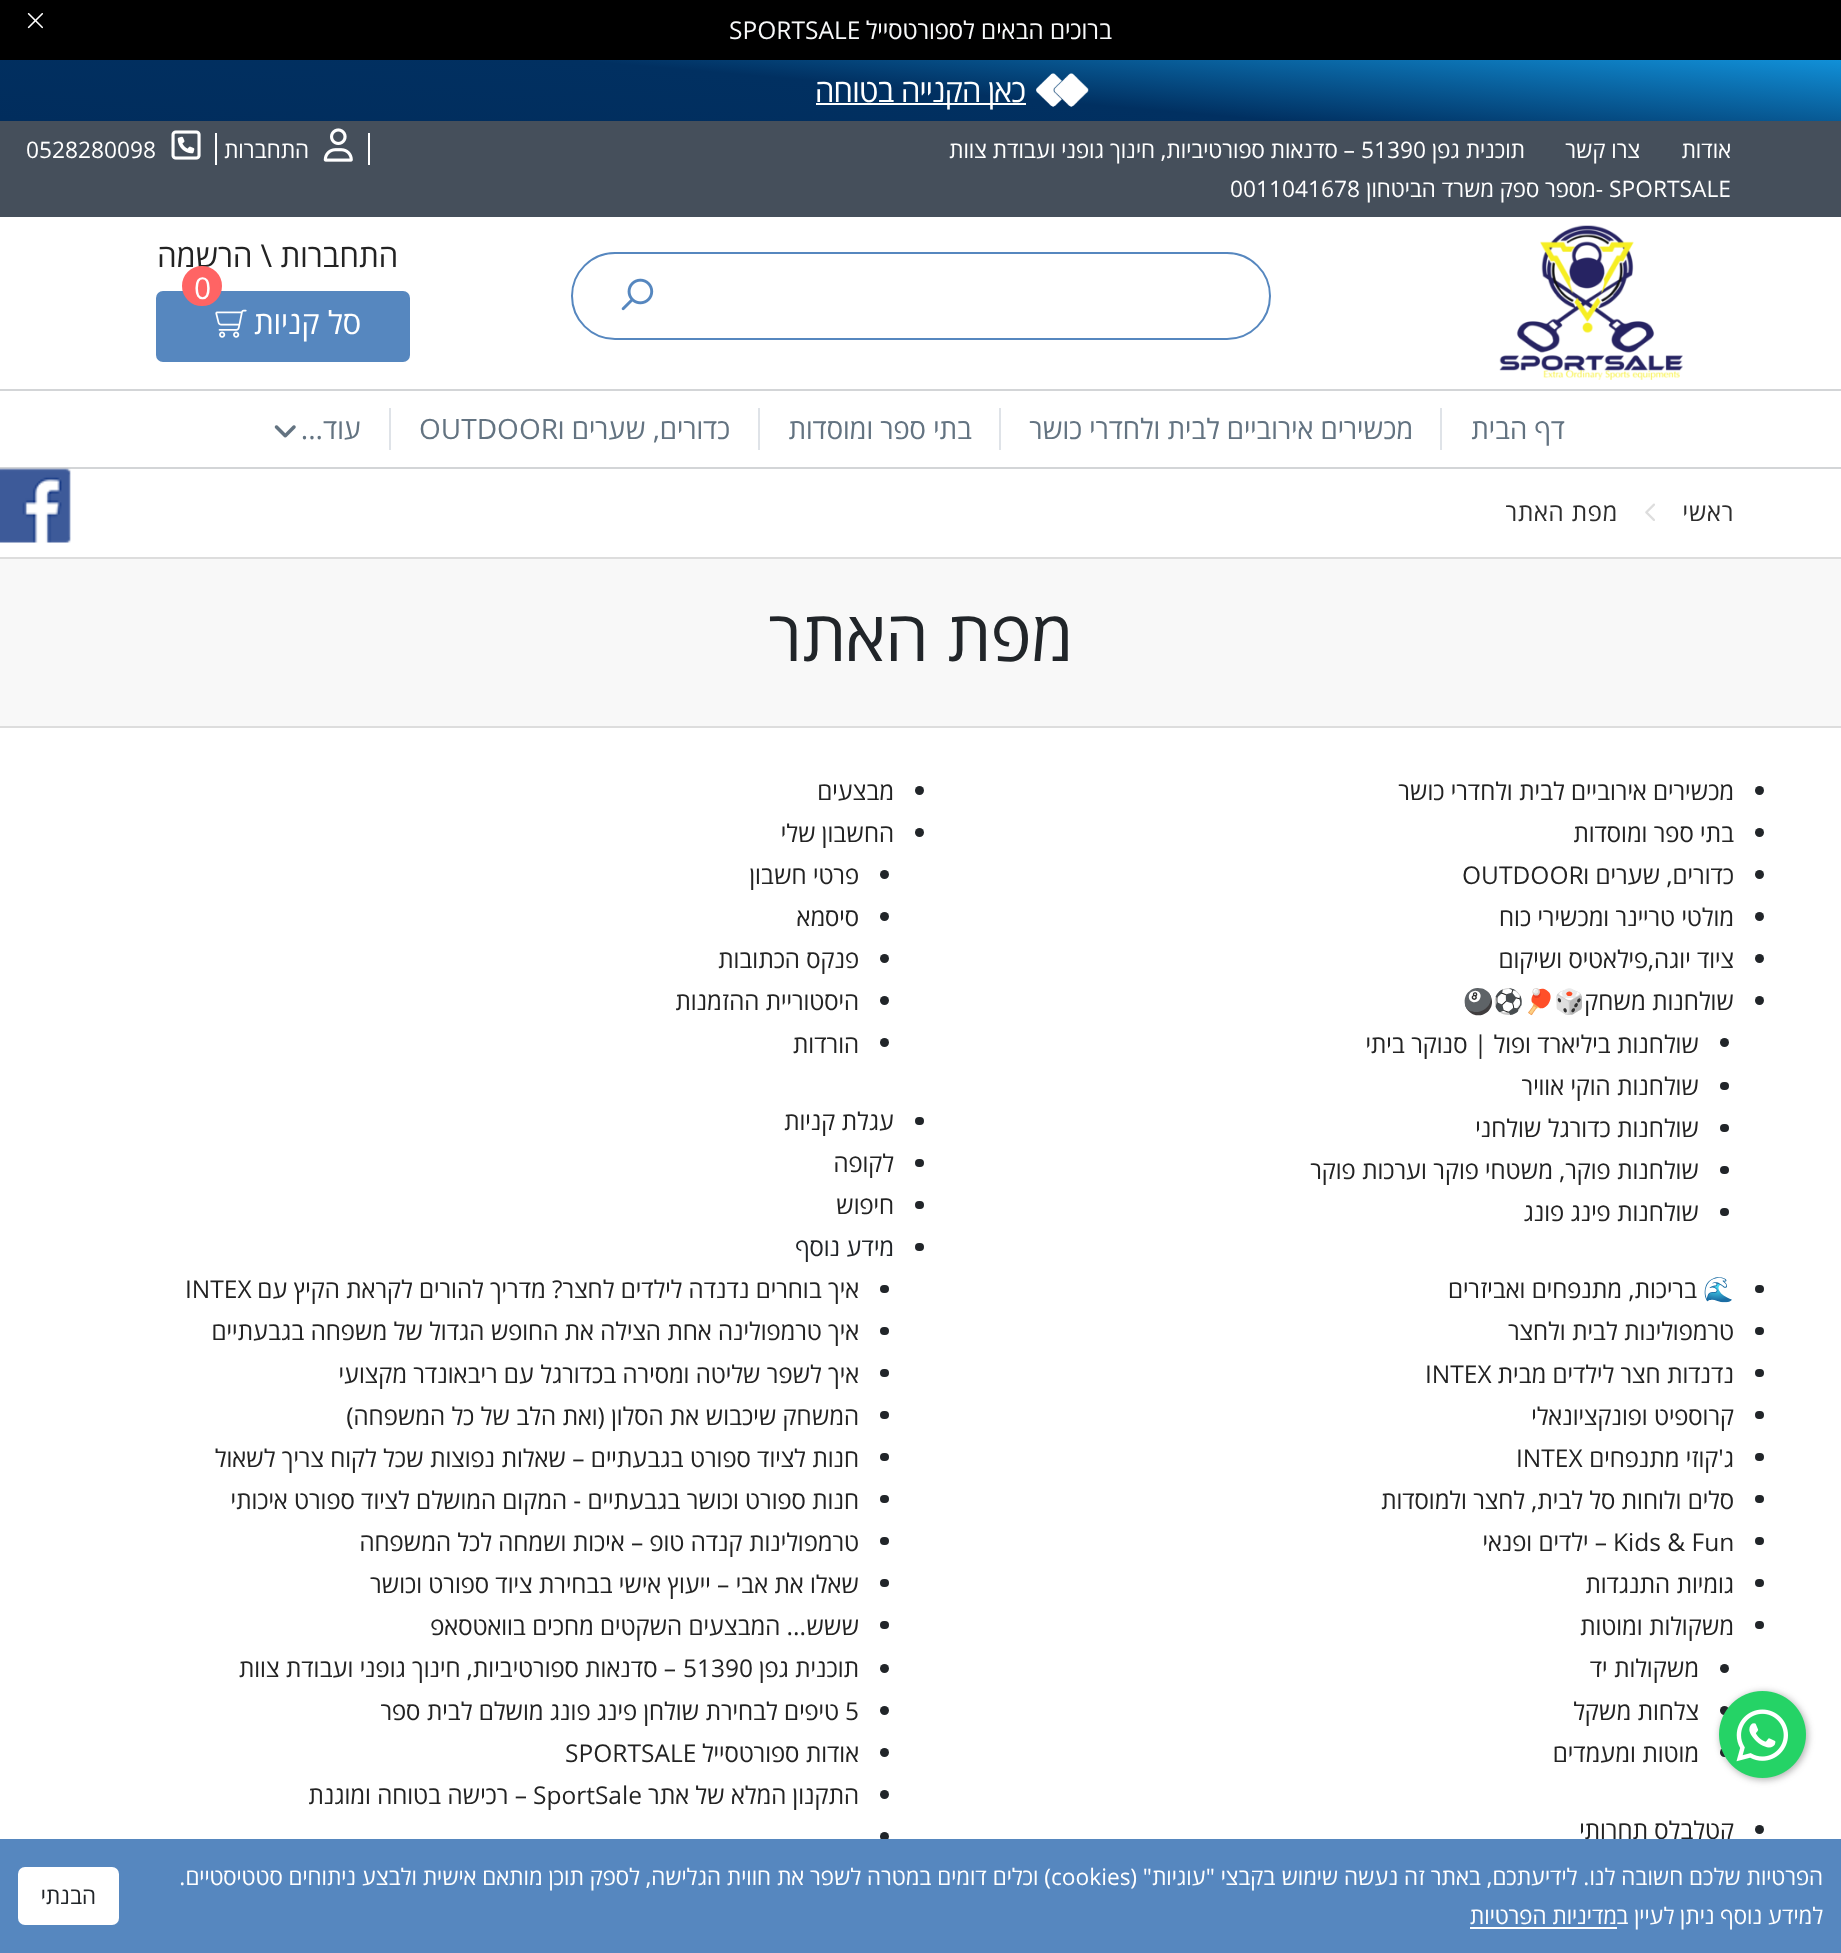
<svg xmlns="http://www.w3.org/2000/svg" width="1841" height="1953">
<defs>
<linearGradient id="g1" gradientUnits="userSpaceOnUse" x1="911" y1="200" x2="930" y2="-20"><stop offset="0" stop-color="#012d5d"/><stop offset="0.5" stop-color="#013061"/><stop offset="1" stop-color="#1191d9"/></linearGradient>
</defs>
<rect width="100%" height="100%" fill="#fff"/>
<rect y="467" width="1841" height="2" fill="#d3d5d7"/>
<rect width="1841" height="60" fill="#000"/>
<text x="1112" y="39" style="font-family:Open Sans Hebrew;font-size:24.5px;direction:rtl;fill:#f8f9fa">ברוכים הבאים לספורטסייל</text>
<text x="729" y="39" style="font-family:Open Sans Hebrew;font-size:24.5px;fill:#f8f9fa">SPORTSALE</text>
<image x="27" y="13" width="16" height="16" href="media/1.png"/>
<rect y="60" width="1841" height="61" fill="url(#g1)"/>
<image x="1036" y="73" width="53" height="34" href="media/2.png"/>
<rect x="816" y="103" width="210" height="2" fill="#fff"/>
<text x="1025" y="102" style="font-family:Open Sans Hebrew;font-size:31.5px;letter-spacing:-0.75px;direction:rtl;fill:#fff">כאן הקנייה בטוחה</text>
<rect y="121" width="1841" height="96" fill="#454f5b"/>
<text x="1731" y="158" style="font-family:Open Sans Hebrew;font-size:22.75px;direction:rtl;fill:#fff">אודות</text>
<text x="1640" y="158" style="font-family:Open Sans Hebrew;font-size:22.75px;direction:rtl;fill:#fff">צרו קשר</text>
<text x="1525" y="158" style="font-family:Open Sans Hebrew;font-size:22.75px;direction:rtl;fill:#fff">תוכנית גפן</text>
<text x="1361" y="158" style="font-family:Open Sans Hebrew;font-size:22.75px;fill:#fff">51390</text>
<text x="1355" y="158" style="font-family:Open Sans Hebrew;font-size:22.75px;direction:rtl;fill:#fff">– סדנאות ספורטיביות, חינוך גופני ועבודת צוות</text>
<text x="1609" y="197" style="font-family:Open Sans Hebrew;font-size:22.75px;fill:#fff">SPORTSALE</text>
<text x="1603" y="197" style="font-family:Open Sans Hebrew;font-size:22.75px;direction:rtl;fill:#fff">-מספר ספק משרד הביטחון</text>
<text x="1230" y="197" style="font-family:Open Sans Hebrew;font-size:22.75px;fill:#fff">0011041678</text>
<rect x="368" y="133" width="2" height="32" fill="#fff"/>
<image x="323" y="128" width="30" height="34" href="media/3.png"/>
<text x="309" y="158" style="font-family:Open Sans Hebrew;font-size:22.75px;direction:rtl;fill:#fff">התחברות</text>
<rect x="215" y="133" width="2" height="32" fill="#fff"/>
<image x="171" y="130" width="30" height="30" href="media/4.png"/>
<text x="26" y="158" style="font-family:Open Sans Hebrew;font-size:22.75px;fill:#fff">0528280098</text>
<image x="1499" y="225" width="184" height="155" href="media/5.png"/>
<rect x="572" y="253" width="698" height="86" rx="43" fill="none" stroke="#5687bf" stroke-width="2"/>
<image x="621" y="278" width="33" height="33" href="media/6.png"/>
<text x="398" y="267" style="font-family:Open Sans Hebrew;font-size:31.5px;direction:rtl;fill:#232323">התחברות \ הרשמה</text>
<rect x="156" y="291" width="254" height="71" rx="7" fill="#5687bf"/>
<circle cx="202" cy="286" r="19" fill="#ff6464" stroke="#ff6464" stroke-width="2"/>
<text x="194" y="299" style="font-family:Open Sans Hebrew;font-size:30px;fill:#fff">0</text>
<text x="361" y="334" style="font-family:Open Sans Hebrew;font-size:31.5px;direction:rtl;fill:#fff">סל קניות</text>
<image x="215" y="309" width="32" height="29" href="media/7.png"/>
<rect y="389" width="1841" height="2" fill="#d3d5d7"/>
<text x="1565" y="439" style="font-family:Open Sans Hebrew;font-size:28px;direction:rtl;fill:#637381">דף הבית</text>
<rect x="1440" y="408" width="2" height="42" fill="#dfe3e8"/>
<text x="1413" y="439" style="font-family:Open Sans Hebrew;font-size:28px;direction:rtl;fill:#637381">מכשירים אירוביים לבית ולחדרי כושר</text>
<rect x="999" y="408" width="2" height="42" fill="#dfe3e8"/>
<text x="972" y="439" style="font-family:Open Sans Hebrew;font-size:28px;direction:rtl;fill:#637381">בתי ספר ומוסדות</text>
<rect x="758" y="408" width="2" height="42" fill="#dfe3e8"/>
<text x="730" y="439" style="font-family:Open Sans Hebrew;font-size:28px;direction:rtl;fill:#637381">כדורים, שערים ו</text>
<text x="419" y="439" style="font-family:Open Sans Hebrew;font-size:28px;fill:#637381">OUTDOOR</text>
<rect x="389" y="408" width="2" height="42" fill="#dfe3e8"/>
<text x="361" y="439" style="font-family:Open Sans Hebrew;font-size:28px;direction:rtl;fill:#637381">עוד...</text>
<image x="274" y="425" width="22" height="13" href="media/8.png"/>
<circle cx="1724.5" cy="1710.5" r="4.5" fill="#212529"/>
<circle cx="1724.5" cy="1752.5" r="4.5" fill="#212529"/>
<rect x="1720" y="1692" width="88" height="88" rx="44" fill="#3c3c3c66" filter="blur(3.5px)"/>
<image x="1719" y="1691" width="87" height="87" href="media/9.png"/>
<text x="1734" y="521" style="font-family:Open Sans Hebrew;font-size:24.5px;letter-spacing:0.75px;direction:rtl;fill:#2d2d2d">ראשי</text>
<image x="1645" y="503" width="10" height="18" href="media/10.png"/>
<text x="1618" y="521" style="font-family:Open Sans Hebrew;font-size:24.5px;letter-spacing:0.75px;direction:rtl;fill:#2d2d2d">מפת האתר</text>
<rect y="559" width="1841" height="167" fill="#f8f8f8"/>
<rect y="557" width="1841" height="2" fill="#ddd"/>
<rect y="726" width="1841" height="2" fill="#ddd"/>
<text x="1073" y="661" style="font-family:Open Sans Hebrew;font-size:70px;direction:rtl;fill:#212529">מפת האתר</text>
<circle cx="1759.5" cy="790.5" r="4.5" fill="#212529"/>
<text x="1734" y="800" style="font-family:Open Sans Hebrew;font-size:24.5px;direction:rtl;fill:#232323">מכשירים אירוביים לבית ולחדרי כושר</text>
<circle cx="1759.5" cy="832.5" r="4.5" fill="#212529"/>
<text x="1734" y="842" style="font-family:Open Sans Hebrew;font-size:24.5px;direction:rtl;fill:#232323">בתי ספר ומוסדות</text>
<circle cx="1759.5" cy="874.5" r="4.5" fill="#212529"/>
<text x="1734" y="884" style="font-family:Open Sans Hebrew;font-size:24.5px;direction:rtl;fill:#232323">כדורים, שערים ו</text>
<text x="1462" y="884" style="font-family:Open Sans Hebrew;font-size:24.5px;fill:#232323">OUTDOOR</text>
<circle cx="1759.5" cy="916.5" r="4.5" fill="#212529"/>
<text x="1734" y="926" style="font-family:Open Sans Hebrew;font-size:24.5px;direction:rtl;fill:#232323">מולטי טריינר ומכשירי כוח</text>
<circle cx="1759.5" cy="958.5" r="4.5" fill="#212529"/>
<text x="1734" y="968" style="font-family:Open Sans Hebrew;font-size:24.5px;direction:rtl;fill:#232323">ציוד יוגה,פילאטיס ושיקום</text>
<circle cx="1759.5" cy="1000.5" r="4.5" fill="#212529"/>
<text x="1734" y="1010" style="font-family:Open Sans Hebrew;font-size:24.5px;direction:rtl;fill:#232323">שולחנות משחק</text>
<text x="1585" y="1010" style="font-family:Noto Color Emoji;font-size:24.5px;direction:rtl;fill:#232323">🎲🏓⚽🎱</text>
<circle cx="1724.5" cy="1042.5" r="4.5" fill="#212529"/>
<text x="1699" y="1053" style="font-family:Open Sans Hebrew;font-size:24.5px;direction:rtl;fill:#232323">שולחנות ביליארד ופול | סנוקר ביתי</text>
<rect x="1720" y="1082" width="9" height="8" rx="4" fill="#212529"/>
<text x="1699" y="1095" style="font-family:Open Sans Hebrew;font-size:24.5px;direction:rtl;fill:#232323">שולחנות הוקי אוויר</text>
<rect x="1720" y="1124" width="9" height="8" rx="4" fill="#212529"/>
<text x="1699" y="1137" style="font-family:Open Sans Hebrew;font-size:24.5px;direction:rtl;fill:#232323">שולחנות כדורגל שולחני</text>
<rect x="1720" y="1166" width="9" height="8" rx="4" fill="#212529"/>
<text x="1699" y="1179" style="font-family:Open Sans Hebrew;font-size:24.5px;direction:rtl;fill:#232323">שולחנות פוקר, משטחי פוקר וערכות פוקר</text>
<rect x="1720" y="1208" width="9" height="8" rx="4" fill="#212529"/>
<text x="1699" y="1221" style="font-family:Open Sans Hebrew;font-size:24.5px;direction:rtl;fill:#232323">שולחנות פינג פונג</text>
<rect x="1755" y="1285" width="9" height="8" rx="4" fill="#212529"/>
<text x="1734" y="1298" style="font-family:Noto Color Emoji;font-size:24.5px;direction:rtl;fill:#232323">🌊</text>
<text x="1697" y="1298" style="font-family:Open Sans Hebrew;font-size:24.5px;direction:rtl;fill:#232323">בריכות, מתנפחים ואביזרים</text>
<rect x="1755" y="1327" width="9" height="8" rx="4" fill="#212529"/>
<text x="1734" y="1340" style="font-family:Open Sans Hebrew;font-size:24.5px;direction:rtl;fill:#232323">טרמפולינות לבית ולחצר</text>
<rect x="1755" y="1369" width="9" height="8" rx="4" fill="#212529"/>
<text x="1734" y="1383" style="font-family:Open Sans Hebrew;font-size:24.5px;direction:rtl;fill:#232323">נדנדות חצר לילדים מבית</text>
<text x="1425" y="1383" style="font-family:Open Sans Hebrew;font-size:24.5px;fill:#232323">INTEX</text>
<rect x="1755" y="1411" width="9" height="8" rx="4" fill="#212529"/>
<text x="1734" y="1425" style="font-family:Open Sans Hebrew;font-size:24.5px;direction:rtl;fill:#232323">קרוספיט ופונקציונאלי</text>
<rect x="1755" y="1453" width="9" height="8" rx="4" fill="#212529"/>
<text x="1734" y="1467" style="font-family:Open Sans Hebrew;font-size:24.5px;direction:rtl;fill:#232323">ג'קוזי מתנפחים</text>
<text x="1516" y="1467" style="font-family:Open Sans Hebrew;font-size:24.5px;fill:#232323">INTEX</text>
<rect x="1755" y="1495" width="9" height="8" rx="4" fill="#212529"/>
<text x="1734" y="1509" style="font-family:Open Sans Hebrew;font-size:24.5px;direction:rtl;fill:#232323">סלים ולוחות סל לבית, לחצר ולמוסדות</text>
<rect x="1755" y="1537" width="9" height="8" rx="4" fill="#212529"/>
<text x="1613" y="1551" style="font-family:Open Sans Hebrew;font-size:24.5px;fill:#232323">Kids &amp; Fun</text>
<text x="1607" y="1551" style="font-family:Open Sans Hebrew;font-size:24.5px;direction:rtl;fill:#232323">– ילדים ופנאי</text>
<rect x="1755" y="1579" width="9" height="8" rx="4" fill="#212529"/>
<text x="1734" y="1593" style="font-family:Open Sans Hebrew;font-size:24.5px;direction:rtl;fill:#232323">גומיות התנגדות</text>
<rect x="1755" y="1621" width="9" height="8" rx="4" fill="#212529"/>
<text x="1734" y="1635" style="font-family:Open Sans Hebrew;font-size:24.5px;direction:rtl;fill:#232323">משקולות ומוטות</text>
<circle cx="1724.5" cy="1668.5" r="4.5" fill="#212529"/>
<text x="1699" y="1677" style="font-family:Open Sans Hebrew;font-size:24.5px;direction:rtl;fill:#232323">משקולות יד</text>
<text x="1699" y="1720" style="font-family:Open Sans Hebrew;font-size:24.5px;direction:rtl;fill:#232323">צלחות משקל</text>
<text x="1699" y="1762" style="font-family:Open Sans Hebrew;font-size:24.5px;direction:rtl;fill:#232323">מוטות ומעמדים</text>
<circle cx="1759.5" cy="1829.5" r="4.5" fill="#212529"/>
<text x="1734" y="1839" style="font-family:Open Sans Hebrew;font-size:24.5px;direction:rtl;fill:#232323">קטלבלס תחרותי</text>
<circle cx="919.5" cy="790.5" r="4.5" fill="#212529"/>
<text x="894" y="800" style="font-family:Open Sans Hebrew;font-size:24.5px;direction:rtl;fill:#232323">מבצעים</text>
<circle cx="919.5" cy="832.5" r="4.5" fill="#212529"/>
<text x="894" y="842" style="font-family:Open Sans Hebrew;font-size:24.5px;direction:rtl;fill:#232323">החשבון שלי</text>
<circle cx="884.5" cy="874.5" r="4.5" fill="#212529"/>
<text x="859" y="884" style="font-family:Open Sans Hebrew;font-size:24.5px;direction:rtl;fill:#232323">פרטי חשבון</text>
<circle cx="884.5" cy="916.5" r="4.5" fill="#212529"/>
<text x="859" y="926" style="font-family:Open Sans Hebrew;font-size:24.5px;direction:rtl;fill:#232323">סיסמא</text>
<circle cx="884.5" cy="958.5" r="4.5" fill="#212529"/>
<text x="859" y="968" style="font-family:Open Sans Hebrew;font-size:24.5px;direction:rtl;fill:#232323">פנקס הכתובות</text>
<circle cx="884.5" cy="1000.5" r="4.5" fill="#212529"/>
<text x="859" y="1010" style="font-family:Open Sans Hebrew;font-size:24.5px;direction:rtl;fill:#232323">היסטוריית ההזמנות</text>
<circle cx="884.5" cy="1042.5" r="4.5" fill="#212529"/>
<text x="859" y="1053" style="font-family:Open Sans Hebrew;font-size:24.5px;direction:rtl;fill:#232323">הורדות</text>
<rect x="915" y="1117" width="9" height="8" rx="4" fill="#212529"/>
<text x="894" y="1130" style="font-family:Open Sans Hebrew;font-size:24.5px;direction:rtl;fill:#232323">עגלת קניות</text>
<rect x="915" y="1159" width="9" height="8" rx="4" fill="#212529"/>
<text x="894" y="1172" style="font-family:Open Sans Hebrew;font-size:24.5px;direction:rtl;fill:#232323">לקופה</text>
<rect x="915" y="1201" width="9" height="8" rx="4" fill="#212529"/>
<text x="894" y="1214" style="font-family:Open Sans Hebrew;font-size:24.5px;direction:rtl;fill:#232323">חיפוש</text>
<rect x="915" y="1243" width="9" height="8" rx="4" fill="#212529"/>
<text x="894" y="1256" style="font-family:Open Sans Hebrew;font-size:24.5px;direction:rtl;fill:#212529">מידע נוסף</text>
<rect x="880" y="1285" width="9" height="8" rx="4" fill="#212529"/>
<text x="859" y="1298" style="font-family:Open Sans Hebrew;font-size:24.5px;direction:rtl;fill:#232323">איך בוחרים נדנדה לילדים לחצר? מדריך להורים לקראת הקיץ עם</text>
<text x="185" y="1298" style="font-family:Open Sans Hebrew;font-size:24.5px;fill:#232323">INTEX</text>
<rect x="880" y="1327" width="9" height="8" rx="4" fill="#212529"/>
<text x="859" y="1340" style="font-family:Open Sans Hebrew;font-size:24.5px;direction:rtl;fill:#232323">איך טרמפולינה אחת הצילה את החופש הגדול של משפחה בגבעתיים</text>
<rect x="880" y="1369" width="9" height="8" rx="4" fill="#212529"/>
<text x="859" y="1383" style="font-family:Open Sans Hebrew;font-size:24.5px;direction:rtl;fill:#232323">איך לשפר שליטה ומסירה בכדורגל עם ריבאונדר מקצועי</text>
<rect x="880" y="1411" width="9" height="8" rx="4" fill="#212529"/>
<text x="859" y="1425" style="font-family:Open Sans Hebrew;font-size:24.5px;direction:rtl;fill:#232323">המשחק שיכבוש את הסלון (ואת הלב של כל המשפחה)</text>
<rect x="880" y="1453" width="9" height="8" rx="4" fill="#212529"/>
<text x="859" y="1467" style="font-family:Open Sans Hebrew;font-size:24.5px;direction:rtl;fill:#232323">חנות לציוד ספורט בגבעתיים – שאלות נפוצות שכל לקוח צריך לשאול</text>
<rect x="880" y="1495" width="9" height="8" rx="4" fill="#212529"/>
<text x="859" y="1509" style="font-family:Open Sans Hebrew;font-size:24.5px;direction:rtl;fill:#232323">חנות ספורט וכושר בגבעתיים - המקום המושלם לציוד ספורט איכותי</text>
<rect x="880" y="1537" width="9" height="8" rx="4" fill="#212529"/>
<text x="859" y="1551" style="font-family:Open Sans Hebrew;font-size:24.5px;direction:rtl;fill:#232323">טרמפולינות קנדה טופ – איכות ושמחה לכל המשפחה</text>
<rect x="880" y="1579" width="9" height="8" rx="4" fill="#212529"/>
<text x="859" y="1593" style="font-family:Open Sans Hebrew;font-size:24.5px;direction:rtl;fill:#232323">שאלו את אבי – ייעוץ אישי בבחירת ציוד ספורט וכושר</text>
<rect x="880" y="1621" width="9" height="8" rx="4" fill="#212529"/>
<text x="859" y="1635" style="font-family:Open Sans Hebrew;font-size:24.5px;direction:rtl;fill:#232323">ששש... המבצעים השקטים מחכים בוואטסאפ</text>
<circle cx="884.5" cy="1668.5" r="4.5" fill="#212529"/>
<text x="859" y="1677" style="font-family:Open Sans Hebrew;font-size:24.5px;direction:rtl;fill:#232323">תוכנית גפן</text>
<text x="683" y="1677" style="font-family:Open Sans Hebrew;font-size:24.5px;fill:#232323">51390</text>
<text x="676" y="1677" style="font-family:Open Sans Hebrew;font-size:24.5px;direction:rtl;fill:#232323">– סדנאות ספורטיביות, חינוך גופני ועבודת צוות</text>
<circle cx="884.5" cy="1710.5" r="4.5" fill="#212529"/>
<text x="845" y="1720" style="font-family:Open Sans Hebrew;font-size:24.5px;fill:#232323">5</text>
<text x="839" y="1720" style="font-family:Open Sans Hebrew;font-size:24.5px;direction:rtl;fill:#232323">טיפים לבחירת שולחן פינג פונג מושלם לבית ספר</text>
<circle cx="884.5" cy="1752.5" r="4.5" fill="#212529"/>
<text x="859" y="1762" style="font-family:Open Sans Hebrew;font-size:24.5px;direction:rtl;fill:#232323">אודות ספורטסייל</text>
<text x="565" y="1762" style="font-family:Open Sans Hebrew;font-size:24.5px;fill:#232323">SPORTSALE</text>
<circle cx="884.5" cy="1794.5" r="4.5" fill="#212529"/>
<text x="859" y="1804" style="font-family:Open Sans Hebrew;font-size:24.5px;direction:rtl;fill:#232323">התקנון המלא של אתר</text>
<text x="533" y="1804" style="font-family:Open Sans Hebrew;font-size:24.5px;fill:#232323">SportSale</text>
<text x="527" y="1804" style="font-family:Open Sans Hebrew;font-size:24.5px;direction:rtl;fill:#232323">– רכישה בטוחה ומוגנת</text>
<circle cx="884.5" cy="1836.5" r="4.5" fill="#212529"/>
<image x="0" y="468" width="71" height="75" href="media/11.png"/>
<rect y="1839" width="1841" height="114" fill="#5687bf"/>
<text x="1823" y="1885" style="font-family:Open Sans Hebrew;font-size:22.75px;direction:rtl;fill:#fff">הפרטיות שלכם חשובה לנו. לידיעתכם, באתר זה נעשה שימוש בקבצי "עוגיות" (</text>
<text x="1051" y="1885" style="font-family:Open Sans Hebrew;font-size:22.75px;fill:#fff">cookies</text>
<text x="1051" y="1885" style="font-family:Open Sans Hebrew;font-size:22.75px;direction:rtl;fill:#fff">) וכלים דומים במטרה לשפר את חווית הגלישה, לספק תוכן מותאם אישית ולבצע ניתוחים סטטיסטיים.</text>
<text x="1823" y="1924" style="font-family:Open Sans Hebrew;font-size:22.75px;direction:rtl;fill:#fff">למידע נוסף ניתן לעיין ב</text>
<text x="1617" y="1924" style="font-family:Open Sans Hebrew;font-size:22.75px;direction:rtl;fill:#fff">מדיניות הפרטיות</text>
<rect x="1470" y="1927" width="147" height="2" fill="#fff"/>
<rect x="18" y="1867" width="101" height="58" rx="7" fill="#fff"/>
<text x="96" y="1904" style="font-family:Open Sans Hebrew;font-size:22.75px;direction:rtl;fill:#212529">הבנתי</text>
</svg>
